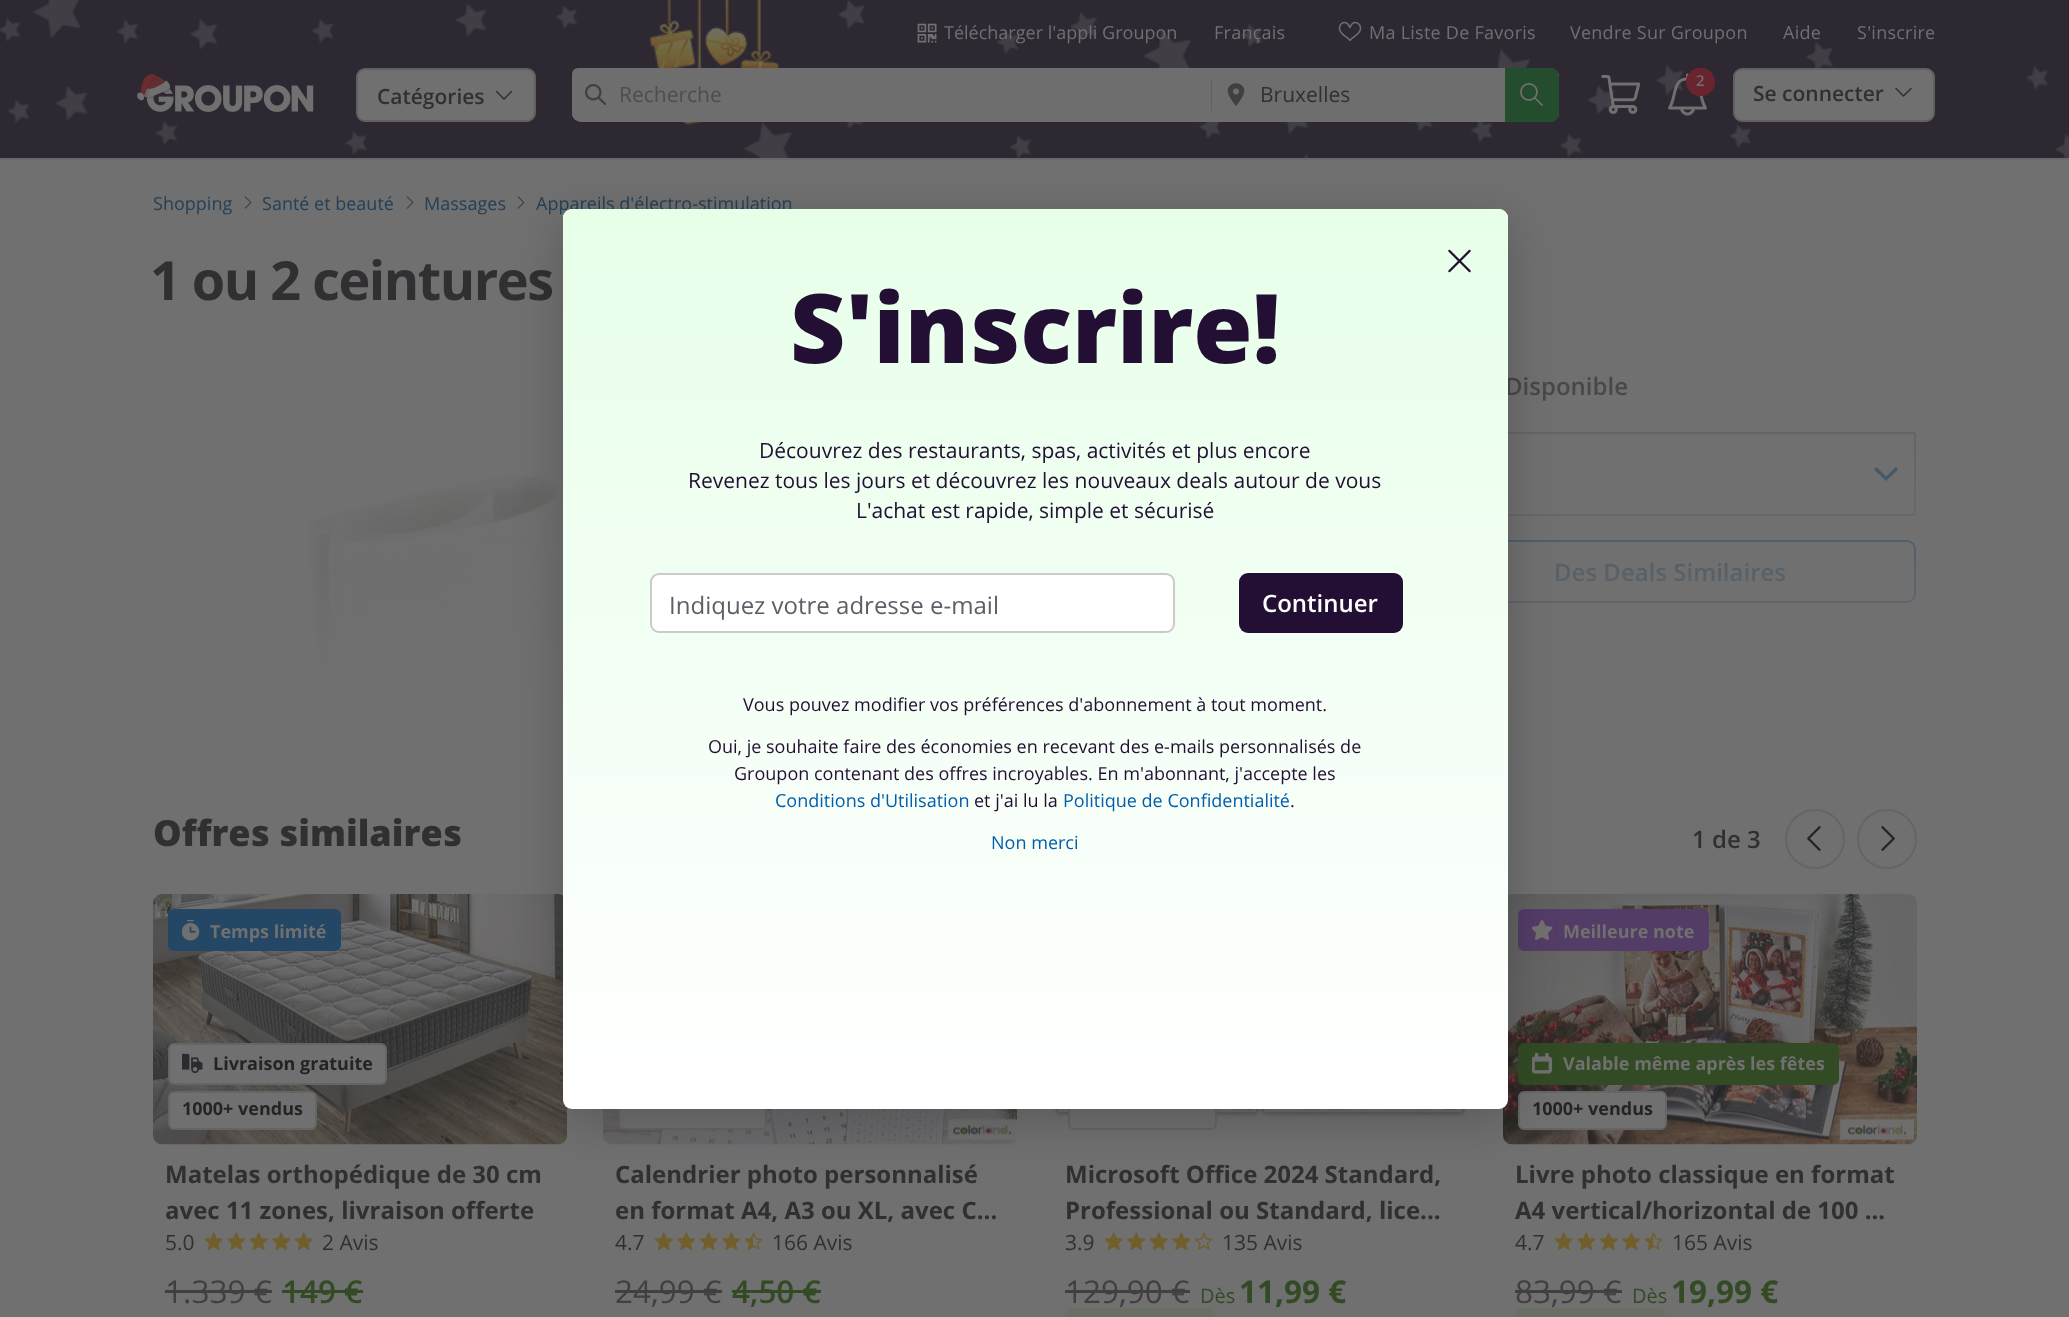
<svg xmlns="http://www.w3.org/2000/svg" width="2069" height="1317">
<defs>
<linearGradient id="g1" gradientUnits="userSpaceOnUse" x1="1035" y1="328" x2="1035" y2="779"><stop offset="0" stop-color="#707070" stop-opacity="0"/><stop offset="0.8" stop-color="#707070"/></linearGradient>
<linearGradient id="g2" gradientUnits="userSpaceOnUse" x1="1035" y1="208" x2="1035" y2="1109"><stop offset="0" stop-color="#e7ffe9"/><stop offset="1" stop-color="#e7ffe9" stop-opacity="0"/><stop offset="1" stop-color="#fff" stop-opacity="0"/><stop offset="1" stop-color="#fff"/></linearGradient>
</defs>
<rect width="100%" height="100%" fill="#707070"/>
<image x="0" y="0" width="2069" height="158" href="media/1.png"/>
<image x="917" y="23" width="20" height="20" href="media/2.png"/>
<text x="944" y="39" style="font-family:Open Sans;font-size:18px;fill:#707070">Télécharger l'appli Groupon</text>
<text x="1214" y="39" style="font-family:Open Sans;font-size:18px;letter-spacing:0.25px;fill:#707070">Français</text>
<image x="1292" y="32" width="8" height="5" href="media/3.png"/>
<image x="1338" y="21" width="24" height="20" href="media/4.png"/>
<text x="1369" y="39" style="font-family:Open Sans;font-size:18px;letter-spacing:0.25px;fill:#707070">Ma Liste De Favoris</text>
<text x="1570" y="39" style="font-family:Open Sans;font-size:18px;letter-spacing:0.25px;fill:#707070">Vendre Sur Groupon</text>
<text x="1783" y="39" style="font-family:Open Sans;font-size:18px;letter-spacing:0.25px;fill:#707070">Aide</text>
<text x="1857" y="39" style="font-family:Open Sans;font-size:18px;letter-spacing:0.25px;fill:#707070">S'inscrire</text>
<image x="137" y="74" width="177" height="38" href="media/5.png"/>
<rect x="357" y="69" width="178" height="52" rx="8" fill="#707070" stroke="#606061" stroke-width="2"/>
<text x="377" y="104" style="font-family:Open Sans;font-size:21px;font-weight:600;fill:#312f32">Catégories</text>
<image x="495" y="90" width="18" height="10" href="media/6.png"/>
<rect x="572" y="68" width="987" height="54" rx="9" fill="#6e6e6f"/>
<rect x="572" y="68" width="639" height="52" rx="6" fill="#6e6e6f"/>
<image x="585" y="84" width="21" height="21" href="media/7.png"/>
<text x="619" y="102" style="font-family:Open Sans;font-size:21px;fill:#4f4e4f">Recherche</text>
<rect x="1211" y="80" width="1" height="31" fill="#606061"/>
<image x="1227" y="83" width="18" height="23" href="media/8.png"/>
<text x="1260" y="102" style="font-family:Open Sans;font-size:21px;fill:#312f32">Bruxelles</text>
<path d="M1506 69h44c4.5 0 8 3.5 8 8v36c0 4.5-3.5 8-8 8h-44z" fill="#244d2e" stroke="#244d2e" stroke-width="2"/>
<image x="1520" y="83" width="23" height="23" href="media/9.png"/>
<image x="1601" y="75" width="40" height="39" href="media/10.png"/>
<image x="1668" y="73" width="39" height="43" href="media/11.png"/>
<rect x="1686" y="68" width="29" height="28" rx="14" fill="#6a2430"/>
<text x="1696" y="86" style="font-family:Open Sans;font-size:15px;font-weight:600;fill:#707070">2</text>
<rect x="1734" y="69" width="200" height="52" rx="8" fill="#707070" stroke="#606061" stroke-width="2"/>
<text x="1753" y="101" style="font-family:Open Sans;font-size:21px;font-weight:600;fill:#312f32">Se connecter</text>
<image x="1895" y="87" width="17" height="10" href="media/12.png"/>
<rect y="158" width="2069" height="2" fill="#686869"/>
<text x="153" y="210" style="font-family:Open Sans;font-size:18px;fill:#244057">Shopping</text>
<image x="244" y="196" width="8" height="13" href="media/13.png"/>
<text x="262" y="210" style="font-family:Open Sans;font-size:18px;fill:#244057">Santé et beauté</text>
<image x="406" y="196" width="8" height="13" href="media/13.png"/>
<text x="424" y="210" style="font-family:Open Sans;font-size:18px;fill:#244057">Massages</text>
<image x="517" y="196" width="8" height="13" href="media/13.png"/>
<text x="536" y="210" style="font-family:Open Sans;font-size:18px;fill:#244057">Appareils d'électro-stimulation</text>
<text x="150" y="300" style="font-family:Open Sans;font-size:54px;font-weight:bold;letter-spacing:-1.5px;fill:#312f32">1 ou 2 ceintures</text>
<image x="204" y="360" width="359" height="327" href="media/14.png"/>
<text x="1505" y="395" style="font-family:Open Sans;font-size:24px;font-weight:600;fill:#413f42">Disponible</text>
<path d="M1898 469.5l-12 11.5l-12-11.5l2.5-2.5l9.5 9.5l10-9.5z" fill="#244a68" fill-rule="evenodd"/>
<rect x="1374" y="433" width="541" height="82" rx="2" fill="none" stroke="#606061" stroke-width="2"/>
<rect x="1374" y="541" width="541" height="61" rx="8" fill="none" stroke="#244765" stroke-width="2"/>
<text x="1554" y="581" style="font-family:Open Sans;font-size:24px;font-weight:600;fill:#244057">Des Deals Similaires</text>
<rect x="309" y="377" width="1607" height="310" fill="url(#g1)"/>
<text x="153" y="846" style="font-family:Open Sans;font-size:36px;font-weight:800;fill:#312f32">Offres similaires</text>
<text x="1692" y="848" style="font-family:Open Sans;font-size:24px;font-weight:600;fill:#312f32">1 de 3</text>
<circle cx="1815" cy="839" r="29" fill="none" stroke="#646565" stroke-width="2"/>
<image x="1807" y="826" width="14" height="25" href="media/15.png"/>
<circle cx="1887" cy="839" r="29" fill="none" stroke="#646565" stroke-width="2"/>
<image x="1881" y="826" width="14" height="25" href="media/16.png"/>
<image x="153" y="894" width="414" height="251" href="media/17.png"/>
<rect x="169" y="910" width="171" height="40" rx="5" fill="#244765" stroke="#244765" stroke-width="2"/>
<image x="182" y="920" width="18" height="21" href="media/18.png"/>
<text x="210" y="938" style="font-family:Open Sans;font-size:18px;font-weight:bold;fill:#707070">Temps limité</text>
<rect x="169" y="1044" width="217" height="40" rx="5" fill="#707070" stroke="#656566" stroke-width="2"/>
<image x="182" y="1053" width="21" height="21" href="media/19.png"/>
<text x="213" y="1070" style="font-family:Open Sans;font-size:18px;font-weight:bold;fill:#242424">Livraison gratuite</text>
<rect x="169" y="1092" width="147" height="37" rx="5" fill="#707070" stroke="#656566" stroke-width="2"/>
<text x="182" y="1115" style="font-family:Open Sans;font-size:18px;font-weight:bold;fill:#242424">1000+ vendus</text>
<text x="165" y="1183" style="font-family:Open Sans;font-size:24px;font-weight:bold;fill:#312f32">Matelas orthopédique de 30 cm</text>
<text x="165" y="1219" style="font-family:Open Sans;font-size:24px;font-weight:bold;fill:#312f32">avec 11 zones, livraison offerte</text>
<text x="165" y="1250" style="font-family:Open Sans;font-size:21px;fill:#312f32">5.0</text>
<image x="205" y="1232" width="18" height="18" href="media/20.png"/>
<image x="205" y="1232" width="18" height="18" href="media/21.png"/>
<image x="227" y="1232" width="18" height="18" href="media/22.png"/>
<image x="227" y="1232" width="18" height="18" href="media/23.png"/>
<image x="250" y="1232" width="18" height="18" href="media/20.png"/>
<image x="250" y="1232" width="18" height="18" href="media/21.png"/>
<image x="272" y="1232" width="18" height="18" href="media/22.png"/>
<image x="272" y="1232" width="18" height="18" href="media/23.png"/>
<image x="295" y="1232" width="18" height="18" href="media/20.png"/>
<image x="295" y="1232" width="18" height="18" href="media/21.png"/>
<text x="322" y="1250" style="font-family:Open Sans;font-size:21px;fill:#312f32">2 Avis</text>
<text x="165" y="1303" style="font-family:Open Sans;font-size:31.5px;fill:#413f42">1.339 €</text>
<rect x="165" y="1290" width="107" height="3" fill="#413f42"/>
<text x="282" y="1303" style="font-family:Open Sans;font-size:31.5px;font-weight:600;fill:#324b24">149 €</text>
<rect x="282" y="1290" width="81" height="3" fill="#324b24"/>
<image x="603" y="1109" width="414" height="36" href="media/24.png"/>
<rect x="619" y="1092" width="147" height="37" rx="5" fill="#707070" stroke="#656566" stroke-width="2"/>
<text x="615" y="1183" style="font-family:Open Sans;font-size:24px;font-weight:bold;fill:#312f32">Calendrier photo personnalisé</text>
<text x="615" y="1219" style="font-family:Open Sans;font-size:24px;font-weight:bold;fill:#312f32">en format A4, A3 ou XL, avec C...</text>
<text x="615" y="1250" style="font-family:Open Sans;font-size:21px;fill:#312f32">4.7</text>
<image x="655" y="1232" width="18" height="18" href="media/20.png"/>
<image x="655" y="1232" width="18" height="18" href="media/21.png"/>
<image x="677" y="1232" width="18" height="18" href="media/22.png"/>
<image x="677" y="1232" width="18" height="18" href="media/23.png"/>
<image x="700" y="1232" width="18" height="18" href="media/20.png"/>
<image x="700" y="1232" width="18" height="18" href="media/21.png"/>
<image x="722" y="1232" width="18" height="18" href="media/22.png"/>
<image x="722" y="1232" width="18" height="18" href="media/23.png"/>
<image x="745" y="1232" width="18" height="18" href="media/20.png"/>
<image x="745" y="1233" width="8" height="17" href="media/25.png"/>
<text x="772" y="1250" style="font-family:Open Sans;font-size:21px;fill:#312f32">166 Avis</text>
<text x="615" y="1303" style="font-family:Open Sans;font-size:31.5px;fill:#413f42">24,99 €</text>
<rect x="615" y="1290" width="107" height="3" fill="#413f42"/>
<text x="732" y="1303" style="font-family:Open Sans;font-size:31.5px;font-weight:600;fill:#324b24">4,50 €</text>
<rect x="732" y="1290" width="89" height="3" fill="#324b24"/>
<image x="1053" y="1109" width="414" height="35" href="media/26.png"/>
<rect x="1069" y="1092" width="147" height="37" rx="5" fill="#707070" stroke="#656566" stroke-width="2"/>
<text x="1065" y="1183" style="font-family:Open Sans;font-size:24px;font-weight:bold;fill:#312f32">Microsoft Office 2024 Standard,</text>
<text x="1065" y="1219" style="font-family:Open Sans;font-size:24px;font-weight:bold;fill:#312f32">Professional ou Standard, lice...</text>
<text x="1065" y="1250" style="font-family:Open Sans;font-size:21px;fill:#312f32">3.9</text>
<image x="1105" y="1232" width="18" height="18" href="media/20.png"/>
<image x="1105" y="1232" width="18" height="18" href="media/21.png"/>
<image x="1127" y="1232" width="18" height="18" href="media/22.png"/>
<image x="1127" y="1232" width="18" height="18" href="media/23.png"/>
<image x="1150" y="1232" width="18" height="18" href="media/20.png"/>
<image x="1150" y="1232" width="18" height="18" href="media/21.png"/>
<image x="1172" y="1232" width="18" height="18" href="media/22.png"/>
<image x="1172" y="1232" width="18" height="18" href="media/23.png"/>
<image x="1195" y="1232" width="18" height="18" href="media/20.png"/>
<text x="1222" y="1250" style="font-family:Open Sans;font-size:21px;fill:#312f32">135 Avis</text>
<text x="1065" y="1303" style="font-family:Open Sans;font-size:31.5px;fill:#413f42">129,90 €</text>
<rect x="1065" y="1290" width="125" height="3" fill="#413f42"/>
<text x="1200" y="1303" style="font-family:Open Sans;font-size:20px;fill:#324b24">Dès</text>
<text x="1239" y="1303" style="font-family:Open Sans;font-size:31.5px;font-weight:bold;fill:#324b24">11,99 €</text>
<rect x="1065" y="1308" width="150" height="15" rx="6" fill="#6a6f66"/>
<image x="1503" y="894" width="414" height="251" href="media/27.png"/>
<rect x="1519" y="910" width="189" height="40" rx="5" fill="#533c66" stroke="#533c66" stroke-width="2"/>
<image x="1532" y="920" width="21" height="20" href="media/28.png"/>
<text x="1563" y="938" style="font-family:Open Sans;font-size:18px;font-weight:bold;fill:#707070">Meilleure note</text>
<rect x="1519" y="1044" width="319" height="40" rx="5" fill="#324b24" stroke="#324b24" stroke-width="2"/>
<image x="1532" y="1053" width="21" height="21" href="media/29.png"/>
<text x="1563" y="1070" style="font-family:Open Sans;font-size:18px;font-weight:bold;fill:#707070">Valable même après les fêtes</text>
<rect x="1519" y="1092" width="147" height="37" rx="5" fill="#707070" stroke="#656566" stroke-width="2"/>
<text x="1532" y="1115" style="font-family:Open Sans;font-size:18px;font-weight:bold;fill:#242424">1000+ vendus</text>
<text x="1515" y="1183" style="font-family:Open Sans;font-size:24px;font-weight:bold;fill:#312f32">Livre photo classique en format</text>
<text x="1515" y="1219" style="font-family:Open Sans;font-size:24px;font-weight:bold;fill:#312f32">A4 vertical/horizontal de 100 ...</text>
<text x="1515" y="1250" style="font-family:Open Sans;font-size:21px;fill:#312f32">4.7</text>
<image x="1555" y="1232" width="18" height="18" href="media/20.png"/>
<image x="1555" y="1232" width="18" height="18" href="media/21.png"/>
<image x="1577" y="1232" width="18" height="18" href="media/22.png"/>
<image x="1577" y="1232" width="18" height="18" href="media/23.png"/>
<image x="1600" y="1232" width="18" height="18" href="media/20.png"/>
<image x="1600" y="1232" width="18" height="18" href="media/21.png"/>
<image x="1622" y="1232" width="18" height="18" href="media/22.png"/>
<image x="1622" y="1232" width="18" height="18" href="media/23.png"/>
<image x="1645" y="1232" width="18" height="18" href="media/20.png"/>
<image x="1645" y="1233" width="8" height="17" href="media/25.png"/>
<text x="1672" y="1250" style="font-family:Open Sans;font-size:21px;fill:#312f32">165 Avis</text>
<text x="1515" y="1303" style="font-family:Open Sans;font-size:31.5px;fill:#413f42">83,99 €</text>
<rect x="1515" y="1290" width="107" height="3" fill="#413f42"/>
<text x="1632" y="1303" style="font-family:Open Sans;font-size:20px;fill:#324b24">Dès</text>
<text x="1671" y="1303" style="font-family:Open Sans;font-size:31.5px;font-weight:bold;fill:#324b24">19,99 €</text>
<rect x="1515" y="1308" width="150" height="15" rx="6" fill="#6a6f66"/>
<rect x="563" y="221" width="945" height="900" rx="9" fill="#00000033" filter="blur(24px)"/>
<rect x="563" y="209" width="945" height="900" rx="9" fill="#fff"/>
<rect x="563" y="209" width="945" height="900" rx="9" fill="url(#g2)"/>
<image x="1448" y="249" width="23" height="24" href="media/30.png"/>
<text x="790" y="363" style="font-family:Open Sans;font-size:96px;font-weight:800;fill:#230f33">S'inscrire!</text>
<text x="759" y="458" style="font-family:Open Sans;font-size:21px;fill:#230f33">Découvrez des restaurants, spas, activités et plus encore</text>
<text x="688" y="488" style="font-family:Open Sans;font-size:21px;fill:#230f33">Revenez tous les jours et découvrez les nouveaux deals autour de vous</text>
<text x="856" y="518" style="font-family:Open Sans;font-size:21px;fill:#230f33">L'achat est rapide, simple et sécurisé</text>
<rect x="651" y="574" width="523" height="58" rx="8" fill="#fff" stroke="#cacacc" stroke-width="2"/>
<text x="669" y="614" style="font-family:Open Sans;font-size:24px;fill:#615c66">Indiquez votre adresse e-mail</text>
<rect x="1239" y="573" width="164" height="60" rx="9" fill="#230f33"/>
<text x="1262" y="612" style="font-family:Open Sans;font-size:24px;font-weight:600;fill:#fff">Continuer</text>
<text x="743" y="711" style="font-family:Open Sans;font-size:18px;fill:#230f33">Vous pouvez modifier vos préférences d'abonnement à tout moment.</text>
<text x="708" y="753" style="font-family:Open Sans;font-size:18px;fill:#230f33">Oui, je souhaite faire des économies en recevant des e-mails personnalisés de</text>
<text x="734" y="780" style="font-family:Open Sans;font-size:18px;fill:#230f33">Groupon contenant des offres incroyables. En m'abonnant, j'accepte les</text>
<text x="775" y="807" style="font-family:Open Sans;font-size:18px;fill:#005eab">Conditions d'Utilisation</text>
<text x="974" y="807" style="font-family:Open Sans;font-size:18px;fill:#230f33">et j'ai lu la</text>
<text x="1063" y="807" style="font-family:Open Sans;font-size:18px;fill:#005eab">Politique de Confidentialité</text>
<text x="1290" y="807" style="font-family:Open Sans;font-size:18px;fill:#230f33">.</text>
<text x="991" y="849" style="font-family:Open Sans;font-size:18px;fill:#005eab">Non merci</text>
</svg>
